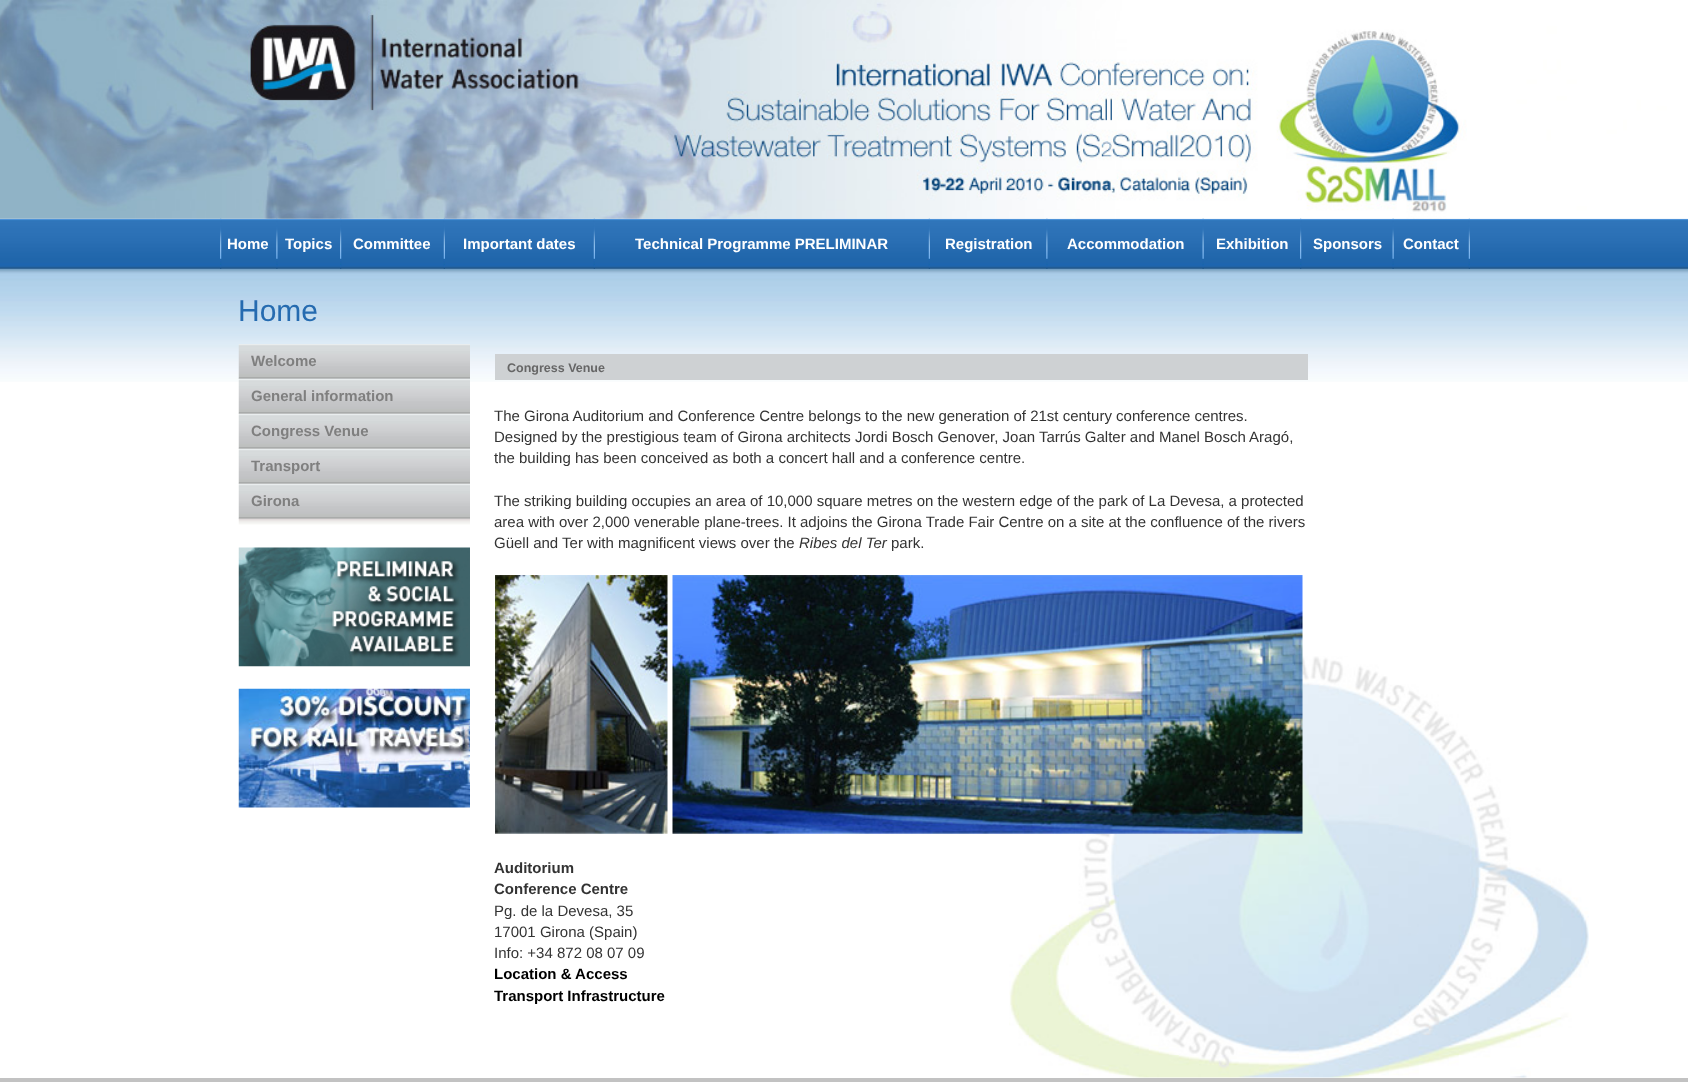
<svg xmlns="http://www.w3.org/2000/svg" width="1688" height="1082">
<rect width="100%" height="100%" fill="#fff"/>
<image x="0" y="218" width="1688" height="164" href="media/1.png"/>
<image x="0" y="0" width="1688" height="219" href="media/2.png"/>
<image x="220" y="218" width="2" height="51" href="media/3.png"/>
<text x="227" y="249" style="font-family:Liberation Sans;font-size:15px;font-weight:bold;fill:#fff">Home</text>
<image x="276" y="218" width="2" height="51" href="media/4.png"/>
<text x="285" y="249" style="font-family:Liberation Sans;font-size:15px;font-weight:bold;fill:#fff">Topics</text>
<image x="340" y="218" width="2" height="51" href="media/5.png"/>
<text x="353" y="249" style="font-family:Liberation Sans;font-size:15px;font-weight:bold;fill:#fff">Committee</text>
<image x="443" y="218" width="2" height="51" href="media/6.png"/>
<text x="463" y="249" style="font-family:Liberation Sans;font-size:15px;font-weight:bold;fill:#fff">Important dates</text>
<image x="593" y="218" width="2" height="51" href="media/7.png"/>
<text x="635" y="249" style="font-family:Liberation Sans;font-size:15px;font-weight:bold;fill:#fff">Technical Programme PRELIMINAR</text>
<image x="928" y="218" width="2" height="51" href="media/8.png"/>
<text x="945" y="249" style="font-family:Liberation Sans;font-size:15px;font-weight:bold;fill:#fff">Registration</text>
<image x="1046" y="218" width="2" height="51" href="media/9.png"/>
<text x="1067" y="249" style="font-family:Liberation Sans;font-size:15px;font-weight:bold;fill:#fff">Accommodation</text>
<image x="1202" y="218" width="2" height="51" href="media/10.png"/>
<text x="1216" y="249" style="font-family:Liberation Sans;font-size:15px;font-weight:bold;fill:#fff">Exhibition</text>
<image x="1300" y="218" width="2" height="51" href="media/11.png"/>
<text x="1313" y="249" style="font-family:Liberation Sans;font-size:15px;font-weight:bold;fill:#fff">Sponsors</text>
<image x="1392" y="218" width="2" height="51" href="media/10.png"/>
<text x="1403" y="249" style="font-family:Liberation Sans;font-size:15px;font-weight:bold;fill:#fff">Contact</text>
<image x="1468" y="218" width="2" height="51" href="media/12.png"/>
<image x="1009" y="656" width="461" height="422" href="media/13.png"/>
<text x="238" y="321" style="font-family:Liberation Sans;font-size:30px;fill:#256bb0">Home</text>
<image x="238" y="344" width="232" height="35" href="media/14.png"/>
<text x="251" y="366" style="font-family:Liberation Sans;font-size:15px;font-weight:bold;fill:#7f7f7f">Welcome</text>
<image x="238" y="378" width="232" height="36" href="media/15.png"/>
<text x="251" y="401" style="font-family:Liberation Sans;font-size:15px;font-weight:bold;fill:#7f7f7f">General information</text>
<image x="238" y="413" width="232" height="36" href="media/16.png"/>
<text x="251" y="436" style="font-family:Liberation Sans;font-size:15px;font-weight:bold;fill:#7f7f7f">Congress Venue</text>
<image x="238" y="448" width="232" height="36" href="media/16.png"/>
<text x="251" y="471" style="font-family:Liberation Sans;font-size:15px;font-weight:bold;fill:#7f7f7f">Transport</text>
<image x="238" y="483" width="232" height="36" href="media/16.png"/>
<text x="251" y="506" style="font-family:Liberation Sans;font-size:15px;font-weight:bold;fill:#7f7f7f">Girona</text>
<image x="238" y="518" width="232" height="7" href="media/17.png"/>
<image x="238" y="547" width="232" height="120" href="media/18.png"/>
<image x="238" y="688" width="232" height="120" href="media/19.png"/>
<rect x="495" y="354" width="813" height="26" fill="#ced1d3"/>
<text x="507" y="372" style="font-family:Liberation Sans;font-size:12.5px;font-weight:bold;fill:#666">Congress Venue</text>
<text x="494" y="421" style="font-family:Liberation Sans;font-size:15px;fill:#333">The Girona Auditorium and Conference Centre belongs to the new generation of 21st century conference centres.</text>
<text x="494" y="442" style="font-family:Liberation Sans;font-size:15px;fill:#333">Designed by the prestigious team of Girona architects Jordi Bosch Genover, Joan Tarrús Galter and Manel Bosch Aragó,</text>
<text x="494" y="463" style="font-family:Liberation Sans;font-size:15px;fill:#333">the building has been conceived as both a concert hall and a conference centre.</text>
<text x="494" y="506" style="font-family:Liberation Sans;font-size:15px;fill:#333">The striking building occupies an area of 10,000 square metres on the western edge of the park of La Devesa, a protected</text>
<text x="494" y="527" style="font-family:Liberation Sans;font-size:15px;fill:#333">area with over 2,000 venerable plane-trees. It adjoins the Girona Trade Fair Centre on a site at the confluence of the rivers</text>
<text x="494" y="548" style="font-family:Liberation Sans;font-size:15px;fill:#333">Güell and Ter with magnificent views over the</text>
<text x="799" y="548" style="font-family:Liberation Sans;font-size:15px;font-style:italic;fill:#333">Ribes del Ter</text>
<text x="891" y="548" style="font-family:Liberation Sans;font-size:15px;fill:#333">park.</text>
<image x="495" y="575" width="173" height="259" href="media/20.png"/>
<image x="672" y="575" width="631" height="259" href="media/21.png"/>
<text x="494" y="873" style="font-family:Liberation Sans;font-size:15px;font-weight:bold;fill:#333">Auditorium</text>
<text x="494" y="894" style="font-family:Liberation Sans;font-size:15px;font-weight:bold;fill:#333">Conference Centre</text>
<text x="494" y="916" style="font-family:Liberation Sans;font-size:15px;fill:#333">Pg. de la Devesa, 35</text>
<text x="494" y="937" style="font-family:Liberation Sans;font-size:15px;fill:#333">17001 Girona (Spain)</text>
<text x="494" y="958" style="font-family:Liberation Sans;font-size:15px;fill:#333">Info: +34 872 08 07 09</text>
<text x="494" y="979" style="font-family:Liberation Sans;font-size:15px;font-weight:bold;fill:#000">Location &amp; Access</text>
<text x="494" y="1001" style="font-family:Liberation Sans;font-size:15px;font-weight:bold;fill:#000">Transport Infrastructure</text>
<image x="1470" y="749" width="119" height="329" href="media/22.png"/>
<rect y="1078" width="1688" height="4" fill="#c2c2c2"/>
</svg>
